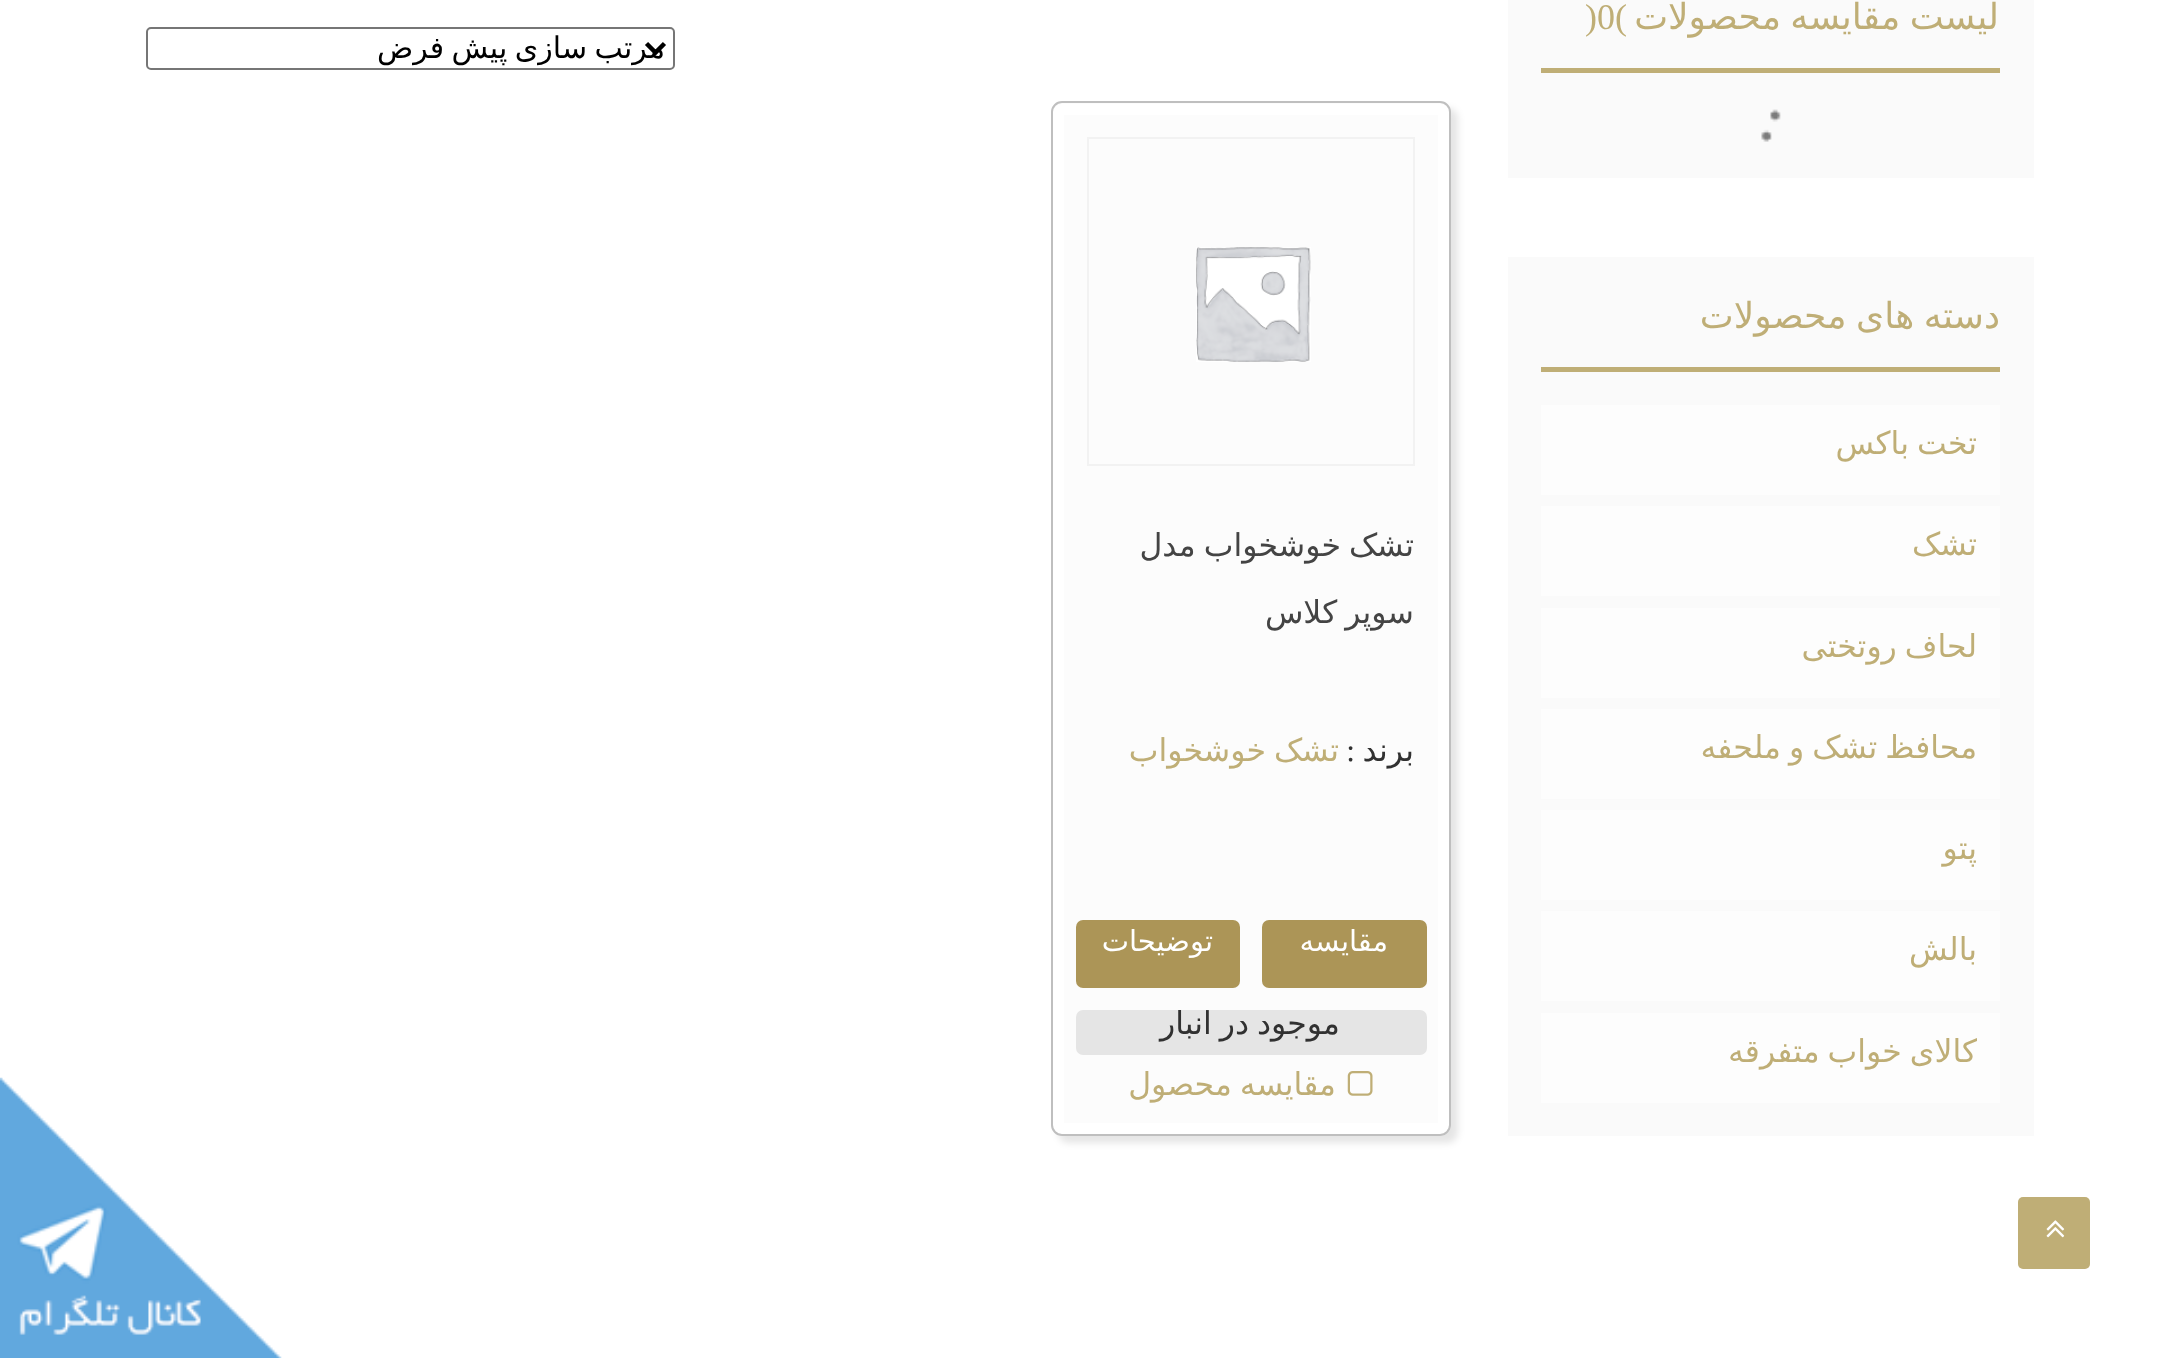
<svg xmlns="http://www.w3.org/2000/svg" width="2180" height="1358">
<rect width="100%" height="100%" fill="#fff"/>
<rect x="1508" width="526" height="178" fill="#fafafa"/>
<rect x="1541" y="68" width="459" height="5" fill="#bfae76"/>
<text x="1999" y="29" word-spacing="-2" style="font-family:DejaVu Sans;font-size:36px;direction:rtl;fill:#bfae76">لیست مقایسه محصولات</text>
<text x="1615" y="29" style="font-family:Liberation Serif;font-size:36px;fill:#bfae76">(</text>
<text x="1597" y="29" style="font-family:Liberation Serif;font-size:36px;fill:#bfae76">0</text>
<text x="1585" y="29" style="font-family:Liberation Serif;font-size:36px;fill:#bfae76">)</text>
<image x="1761" y="109" width="20" height="33" href="media/1.png"/>
<rect x="1508" y="257" width="526" height="879" fill="#fafafa"/>
<rect x="1541" y="367" width="459" height="5" fill="#bfae76"/>
<text x="2000" y="328" word-spacing="-2" style="font-family:DejaVu Sans;font-size:36px;direction:rtl;fill:#bfae76">دسته های محصولات</text>
<rect x="1541" y="405" width="459" height="90" fill="#fdfdfd"/>
<text x="1977" y="454" word-spacing="-2" style="font-family:DejaVu Sans;font-size:31.5px;direction:rtl;fill:#bfae76">تخت باکس</text>
<rect x="1541" y="506" width="459" height="90" fill="#fdfdfd"/>
<text x="1977" y="555" style="font-family:DejaVu Sans;font-size:31.5px;direction:rtl;fill:#bfae76">تشک</text>
<rect x="1541" y="608" width="459" height="90" fill="#fdfdfd"/>
<text x="1977" y="657" word-spacing="-2" style="font-family:DejaVu Sans;font-size:31.5px;direction:rtl;fill:#bfae76">لحاف روتختی</text>
<rect x="1541" y="709" width="459" height="90" fill="#fdfdfd"/>
<text x="1977" y="758" word-spacing="-2" style="font-family:DejaVu Sans;font-size:31.5px;direction:rtl;fill:#bfae76">محافظ تشک و ملحفه</text>
<rect x="1541" y="810" width="459" height="90" fill="#fdfdfd"/>
<text x="1977" y="859" style="font-family:DejaVu Sans;font-size:31.5px;direction:rtl;fill:#bfae76">پتو</text>
<rect x="1541" y="911" width="459" height="90" fill="#fdfdfd"/>
<text x="1977" y="960" style="font-family:DejaVu Sans;font-size:31.5px;direction:rtl;fill:#bfae76">بالش</text>
<rect x="1541" y="1013" width="459" height="90" fill="#fdfdfd"/>
<text x="1977" y="1062" word-spacing="-2" style="font-family:DejaVu Sans;font-size:31.5px;direction:rtl;fill:#bfae76">کالای خواب متفرقه</text>
<rect x="147" y="28" width="527" height="41" rx="4" fill="none" stroke="#767676" stroke-width="2"/>
<path d="M646.5 43.5l9 9l9-9" fill="none" stroke="#000" stroke-width="4.5"/>
<text x="665" y="58" word-spacing="-2" style="font-family:DejaVu Sans;font-size:30px;direction:rtl;fill:#000">مرتب سازی پیش فرض</text>
<rect x="1058" y="108" width="400" height="1035" rx="11" fill="#0000001a" filter="blur(3.5px)"/>
<rect x="1051" y="101" width="400" height="1035" rx="11" fill="#fcfcfc"/>
<rect x="1058.5" y="109.5" width="385" height="1019" rx="3.5" fill="none" stroke="#fff" stroke-width="11"/>
<rect x="1052" y="102" width="398" height="1033" rx="10" fill="none" stroke="#bfbfbf" stroke-width="2"/>
<rect x="1088" y="138" width="326" height="327" fill="none" stroke="#f2f2f2" stroke-width="2"/>
<image x="1196" y="247" width="115" height="115" href="media/2.png"/>
<text x="1414" y="556" word-spacing="-2" style="font-family:DejaVu Sans;font-size:31.5px;direction:rtl;fill:#444">تشک خوشخواب مدل</text>
<text x="1414" y="623" word-spacing="-2" style="font-family:DejaVu Sans;font-size:31.5px;direction:rtl;fill:#444">سوپر کلاس</text>
<text x="1414" y="761" style="font-family:DejaVu Sans;font-size:31.5px;direction:rtl;fill:#313131">برند</text>
<text x="1355" y="761" style="font-family:Liberation Serif;font-size:31.5px;direction:rtl;fill:#313131">:</text>
<text x="1339" y="761" word-spacing="-2" style="font-family:DejaVu Sans;font-size:31.5px;direction:rtl;fill:#bfae76">تشک خوشخواب</text>
<rect x="1262" y="920" width="165" height="68" rx="7" fill="#ac9557"/>
<text x="1388" y="951" style="font-family:DejaVu Sans;font-size:29px;direction:rtl;fill:#fff">مقایسه</text>
<rect x="1076" y="920" width="164" height="68" rx="7" fill="#ac9557"/>
<text x="1213" y="951" style="font-family:DejaVu Sans;font-size:29px;direction:rtl;fill:#fff">توضیحات</text>
<rect x="1076" y="1010" width="351" height="45" rx="7" fill="#e5e5e5"/>
<text x="1340" y="1034" word-spacing="-2" style="font-family:DejaVu Sans;font-size:31.5px;direction:rtl;fill:#313131">موجود در انبار</text>
<image x="1347" y="1071" width="26" height="25" href="media/3.png"/>
<text x="1336" y="1095" word-spacing="-2" style="font-family:DejaVu Sans;font-size:31.5px;direction:rtl;fill:#bfae76">مقایسه محصول</text>
<rect x="2018" y="1197" width="72" height="72" rx="5" fill="#bfae76"/>
<image x="2046" y="1220" width="19" height="18" href="media/4.png"/>
<image x="0" y="1077" width="282" height="281" href="media/5.png"/>
</svg>
